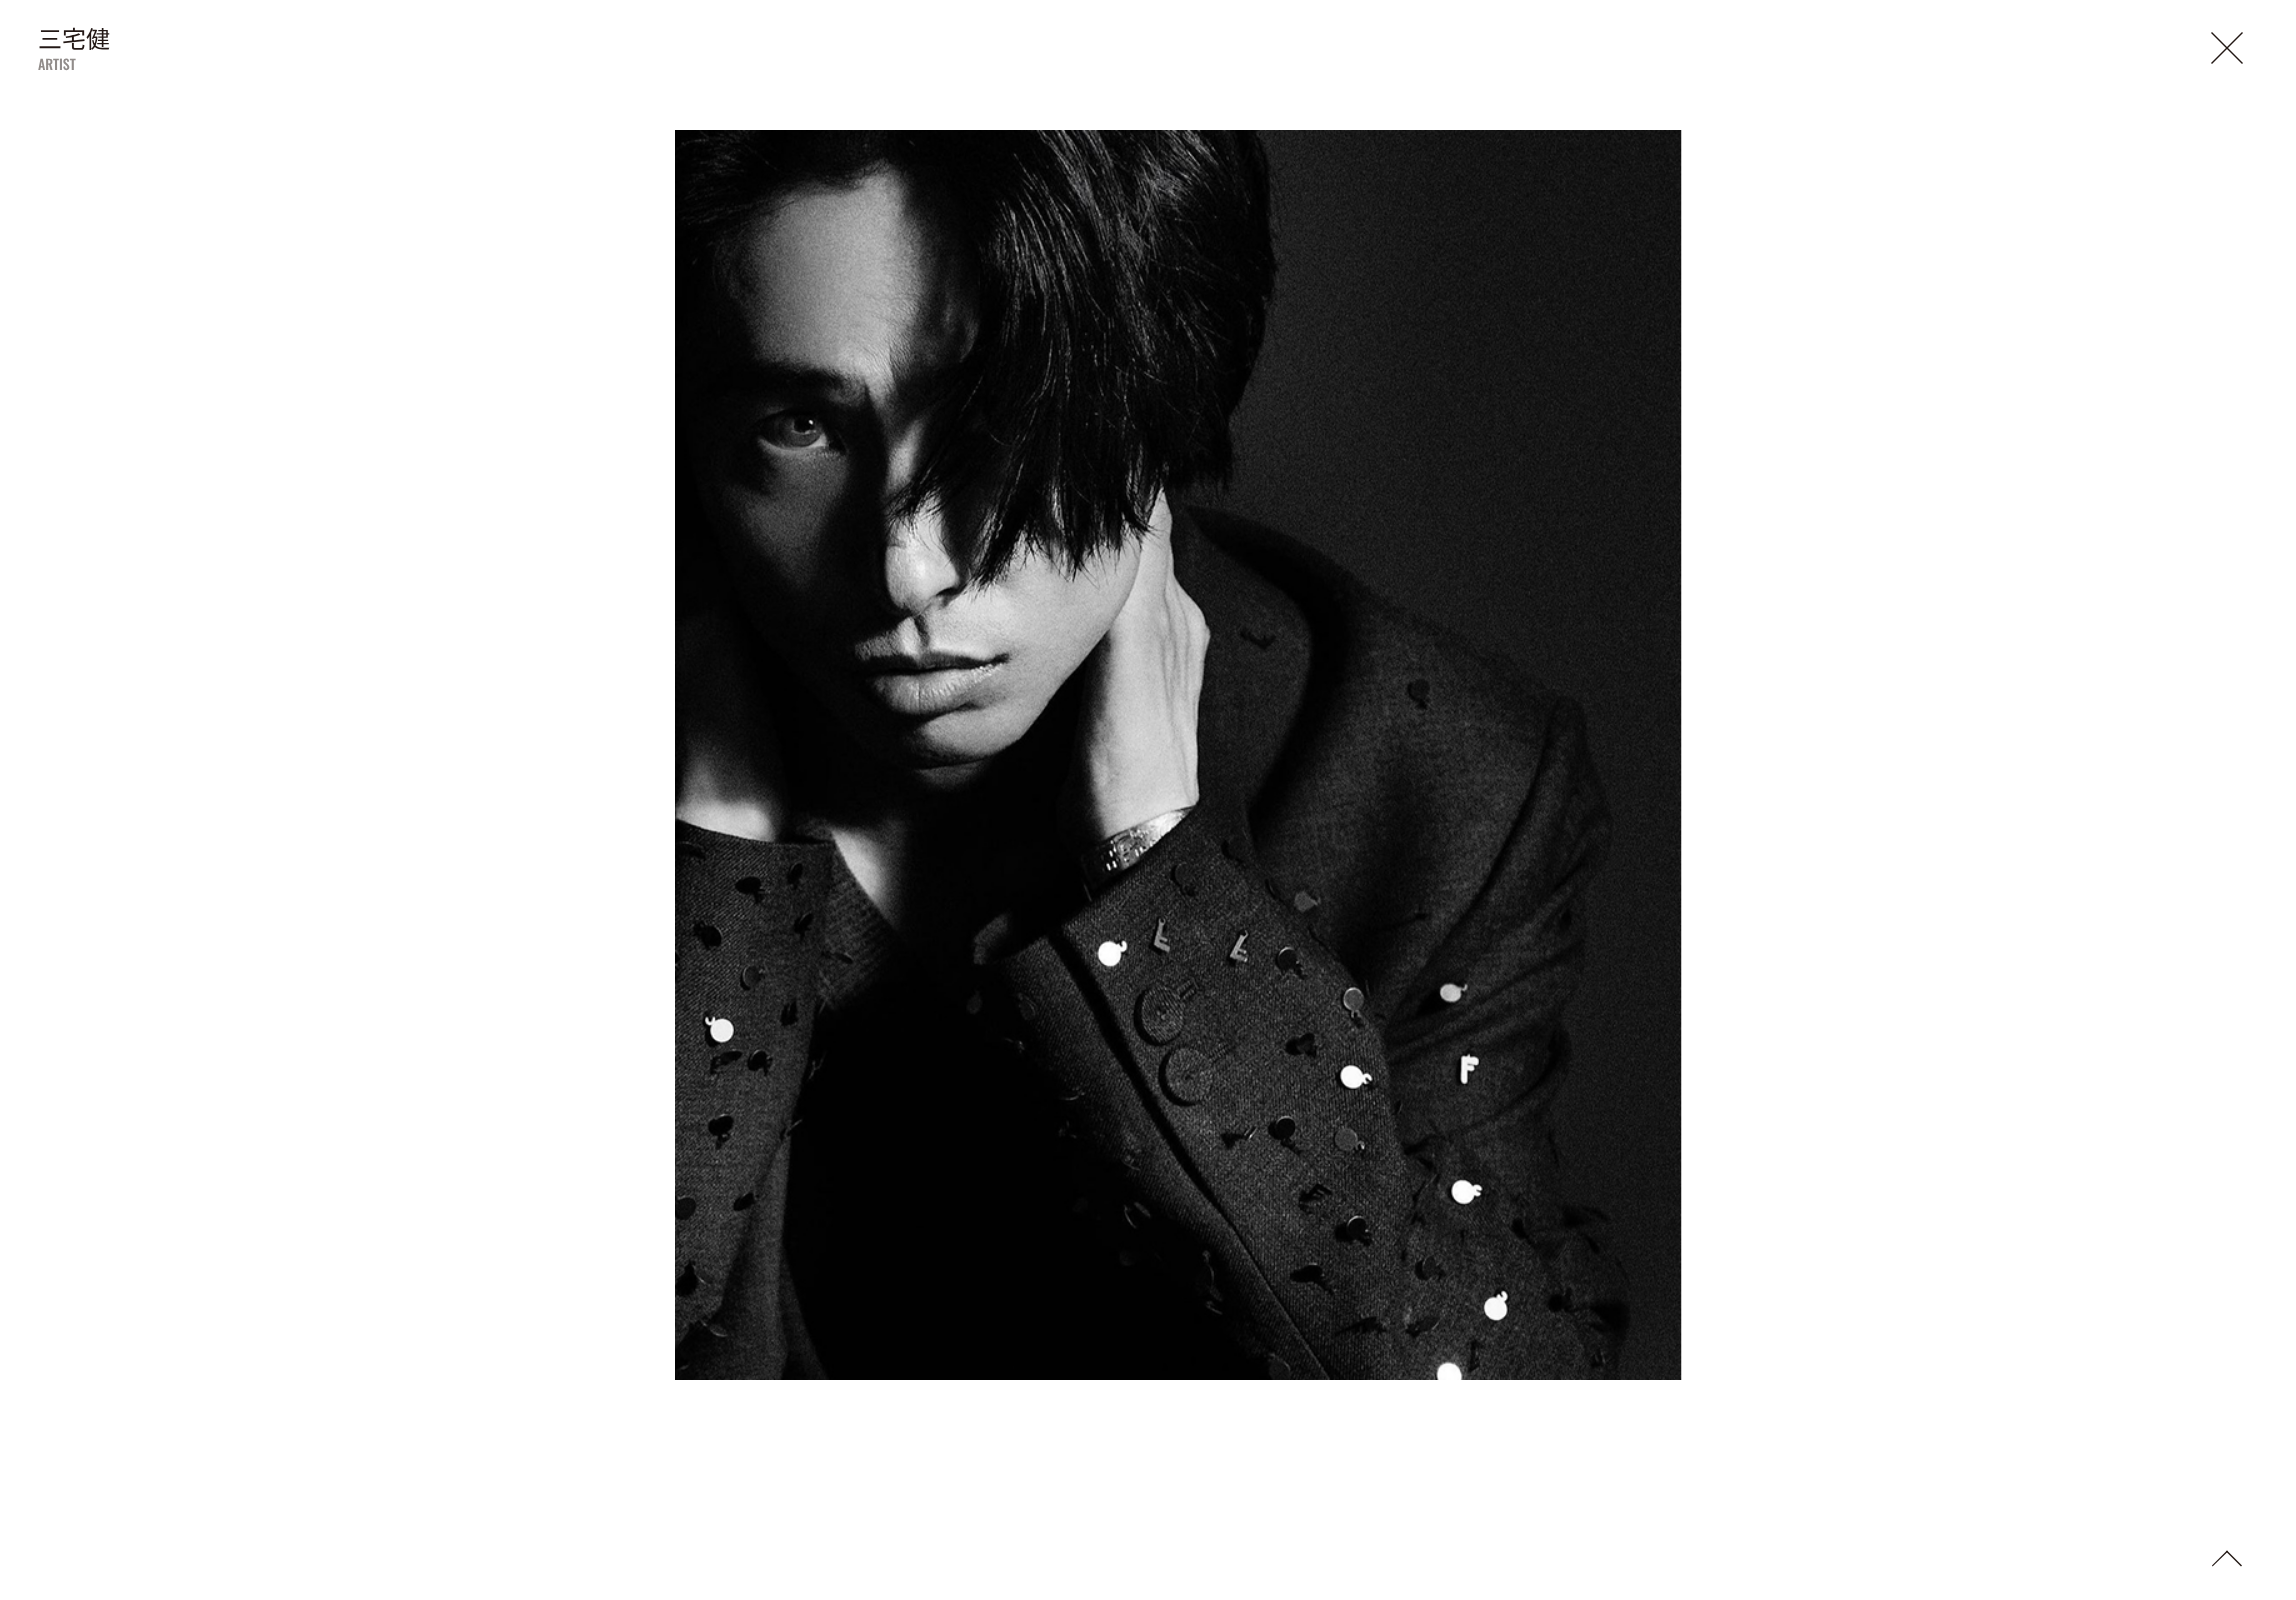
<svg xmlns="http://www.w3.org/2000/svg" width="2296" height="1600">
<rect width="100%" height="100%" fill="#fff"/>
<text x="38" y="48" style="font-family:Noto Sans JP;font-size:24px;font-weight:100;fill:#231815">三宅健</text>
<text x="38" y="70" style="font-family:Oswald;font-size:14px;font-weight:500;fill:#918c8a">ARTIST</text>
<path d="M2212 32l31 31l-1 1l-31-31z" fill="#231815"/>
<path d="M2211 63l31-31l1 1l-31 31z" fill="#231815"/>
<image x="675" y="130" width="1007" height="1250" href="media/1.png"/>
<path d="M2212 1565.5l15-15l1 1l-15.5 15z" fill="#231815"/>
<path d="M2226 1551.5l1-1l15 15l-1 1z" fill="#231815"/>
</svg>
